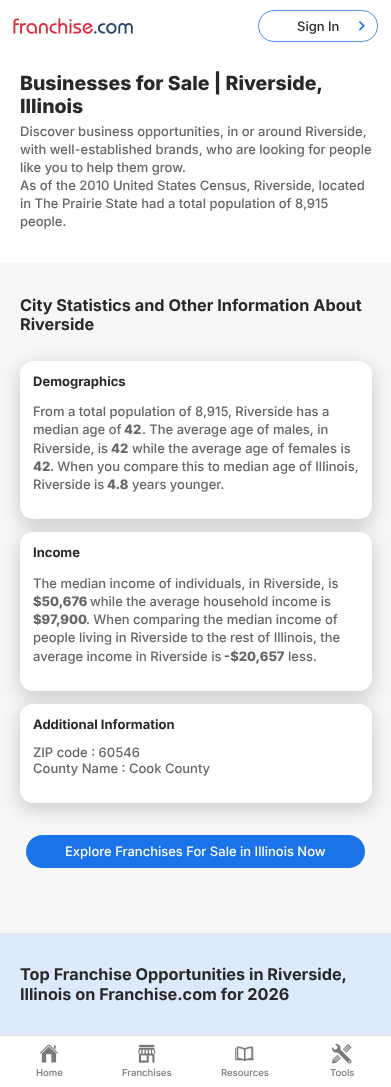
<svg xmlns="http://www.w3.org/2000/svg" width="391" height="1087">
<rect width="100%" height="100%" fill="#fff"/>
<image x="13" y="18" width="120" height="16" href="media/1.png"/>
<image x="358" y="21" width="7" height="10" href="media/2.png"/>
<rect x="258.4" y="10.4" width="119.2" height="31.2" rx="15.6" fill="none" stroke="#1a73e8" stroke-width="0.8"/>
<text x="297" y="31" style="font-family:Inter;font-size:13px;font-weight:500;fill:#282828">Sign In</text>
<text x="20" y="90" style="font-family:Inter;font-size:19.5px;font-weight:800;fill:#282828">Businesses for Sale | Riverside,</text>
<text x="20" y="113" style="font-family:Inter;font-size:19.5px;font-weight:800;fill:#282828">Illinois</text>
<text x="20" y="136" style="font-family:Inter;font-size:13px;font-weight:500;fill:#666">Discover business opportunities, in or around Riverside,</text>
<text x="20" y="154" style="font-family:Inter;font-size:13px;font-weight:500;fill:#666">with well-established brands, who are looking for people</text>
<text x="20" y="172" style="font-family:Inter;font-size:13px;font-weight:500;fill:#666">like you to help them grow.</text>
<text x="20" y="190" style="font-family:Inter;font-size:13px;font-weight:500;fill:#666">As of the 2010 United States Census, Riverside, located</text>
<text x="20" y="208" style="font-family:Inter;font-size:13px;font-weight:500;fill:#666">in The Prairie State had a total population of 8,915</text>
<text x="20" y="226" style="font-family:Inter;font-size:13px;font-weight:500;fill:#666">people.</text>
<rect y="263" width="391" height="670" fill="#f7f7f7"/>
<text x="20" y="311" style="font-family:Inter;font-size:16.25px;font-weight:bold;fill:#282828">City Statistics and Other Information About</text>
<text x="20" y="330" style="font-family:Inter;font-size:16.25px;font-weight:bold;fill:#282828">Riverside</text>
<rect x="20" y="366" width="352" height="158" rx="13" fill="#00000033" filter="blur(10px)"/>
<rect x="20" y="361" width="352" height="158" rx="13" fill="#fff"/>
<text x="33" y="386" style="font-family:Inter;font-size:13px;font-weight:bold;fill:#282828">Demographics</text>
<text x="33" y="416" style="font-family:Inter;font-size:13px;font-weight:500;fill:#666">From a total population of 8,915, Riverside has a</text>
<text x="33" y="434" style="font-family:Inter;font-size:13px;font-weight:500;fill:#666">median age of</text>
<text x="124" y="434" style="font-family:Inter;font-size:13px;font-weight:800;fill:#666">42</text>
<text x="142" y="434" style="font-family:Inter;font-size:13px;font-weight:500;fill:#666">. The average age of males, in</text>
<text x="33" y="453" style="font-family:Inter;font-size:13px;font-weight:500;fill:#666">Riverside, is</text>
<text x="111" y="453" style="font-family:Inter;font-size:13px;font-weight:800;fill:#666">42</text>
<text x="132" y="453" style="font-family:Inter;font-size:13px;font-weight:500;fill:#666">while the average age of females is</text>
<text x="33" y="471" style="font-family:Inter;font-size:13px;font-weight:800;fill:#666">42</text>
<text x="50" y="471" style="font-family:Inter;font-size:13px;font-weight:500;fill:#666">. When you compare this to median age of Illinois,</text>
<text x="33" y="489" style="font-family:Inter;font-size:13px;font-weight:500;fill:#666">Riverside is</text>
<text x="107" y="489" style="font-family:Inter;font-size:13px;font-weight:800;fill:#666">4.8</text>
<text x="132" y="489" style="font-family:Inter;font-size:13px;font-weight:500;fill:#666">years younger.</text>
<rect x="20" y="537" width="352" height="159" rx="13" fill="#00000033" filter="blur(10px)"/>
<rect x="20" y="532" width="352" height="159" rx="13" fill="#fff"/>
<text x="33" y="557" style="font-family:Inter;font-size:13px;font-weight:bold;fill:#282828">Income</text>
<text x="33" y="588" style="font-family:Inter;font-size:13px;font-weight:500;fill:#666">The median income of individuals, in Riverside, is</text>
<text x="33" y="606" style="font-family:Inter;font-size:13px;font-weight:800;fill:#666">$50,676</text>
<text x="90" y="606" style="font-family:Inter;font-size:13px;font-weight:500;fill:#666">while the average household income is</text>
<text x="33" y="624" style="font-family:Inter;font-size:13px;font-weight:800;fill:#666">$97,900</text>
<text x="86" y="624" style="font-family:Inter;font-size:13px;font-weight:500;fill:#666">. When comparing the median income of</text>
<text x="33" y="642" style="font-family:Inter;font-size:13px;font-weight:500;fill:#666">people living in Riverside to the rest of Illinois, the</text>
<text x="33" y="661" style="font-family:Inter;font-size:13px;font-weight:500;fill:#666">average income in Riverside is</text>
<text x="224" y="661" style="font-family:Inter;font-size:13px;font-weight:800;fill:#666">-$20,657</text>
<text x="288" y="661" style="font-family:Inter;font-size:13px;font-weight:500;fill:#666">less.</text>
<rect x="26" y="835" width="339" height="33" rx="16.5" fill="#1a73e8"/>
<rect x="20" y="709" width="352" height="99" rx="13" fill="#00000033" filter="blur(10px)"/>
<rect x="20" y="704" width="352" height="99" rx="13" fill="#fff"/>
<text x="33" y="729" style="font-family:Inter;font-size:13px;font-weight:bold;fill:#282828">Additional Information</text>
<text x="33" y="757" style="font-family:Inter;font-size:13px;font-weight:500;fill:#666">ZIP code : 60546</text>
<text x="33" y="773" style="font-family:Inter;font-size:13px;font-weight:500;fill:#666">County Name : Cook County</text>
<text x="65" y="856" style="font-family:Inter;font-size:13px;font-weight:500;fill:#fff">Explore Franchises For Sale in Illinois Now</text>
<rect y="933" width="391" height="102" fill="#ddeafc"/>
<text x="20" y="980" style="font-family:Inter;font-size:16.25px;font-weight:bold;fill:#282828">Top Franchise Opportunities in Riverside,</text>
<text x="20" y="1000" style="font-family:Inter;font-size:16.25px;font-weight:bold;fill:#282828">Illinois on Franchise.com for 2026</text>
<rect y="1035" width="391" height="1" fill="#dcdcdc"/>
<image x="40" y="1044" width="18" height="19" href="media/3.png"/>
<text x="36" y="1076" style="font-family:Inter;font-size:9.5px;font-weight:500;fill:#7a7a7a">Home</text>
<image x="138" y="1044" width="18" height="19" href="media/4.png"/>
<text x="122" y="1076" style="font-family:Inter;font-size:9.5px;font-weight:500;fill:#7a7a7a">Franchises</text>
<image x="235" y="1046" width="19" height="15" href="media/5.png"/>
<text x="221" y="1076" style="font-family:Inter;font-size:9.5px;font-weight:500;fill:#7a7a7a">Resources</text>
<image x="332" y="1044" width="20" height="20" href="media/6.png"/>
<text x="330" y="1076" style="font-family:Inter;font-size:9.5px;font-weight:500;fill:#7a7a7a">Tools</text>
</svg>
